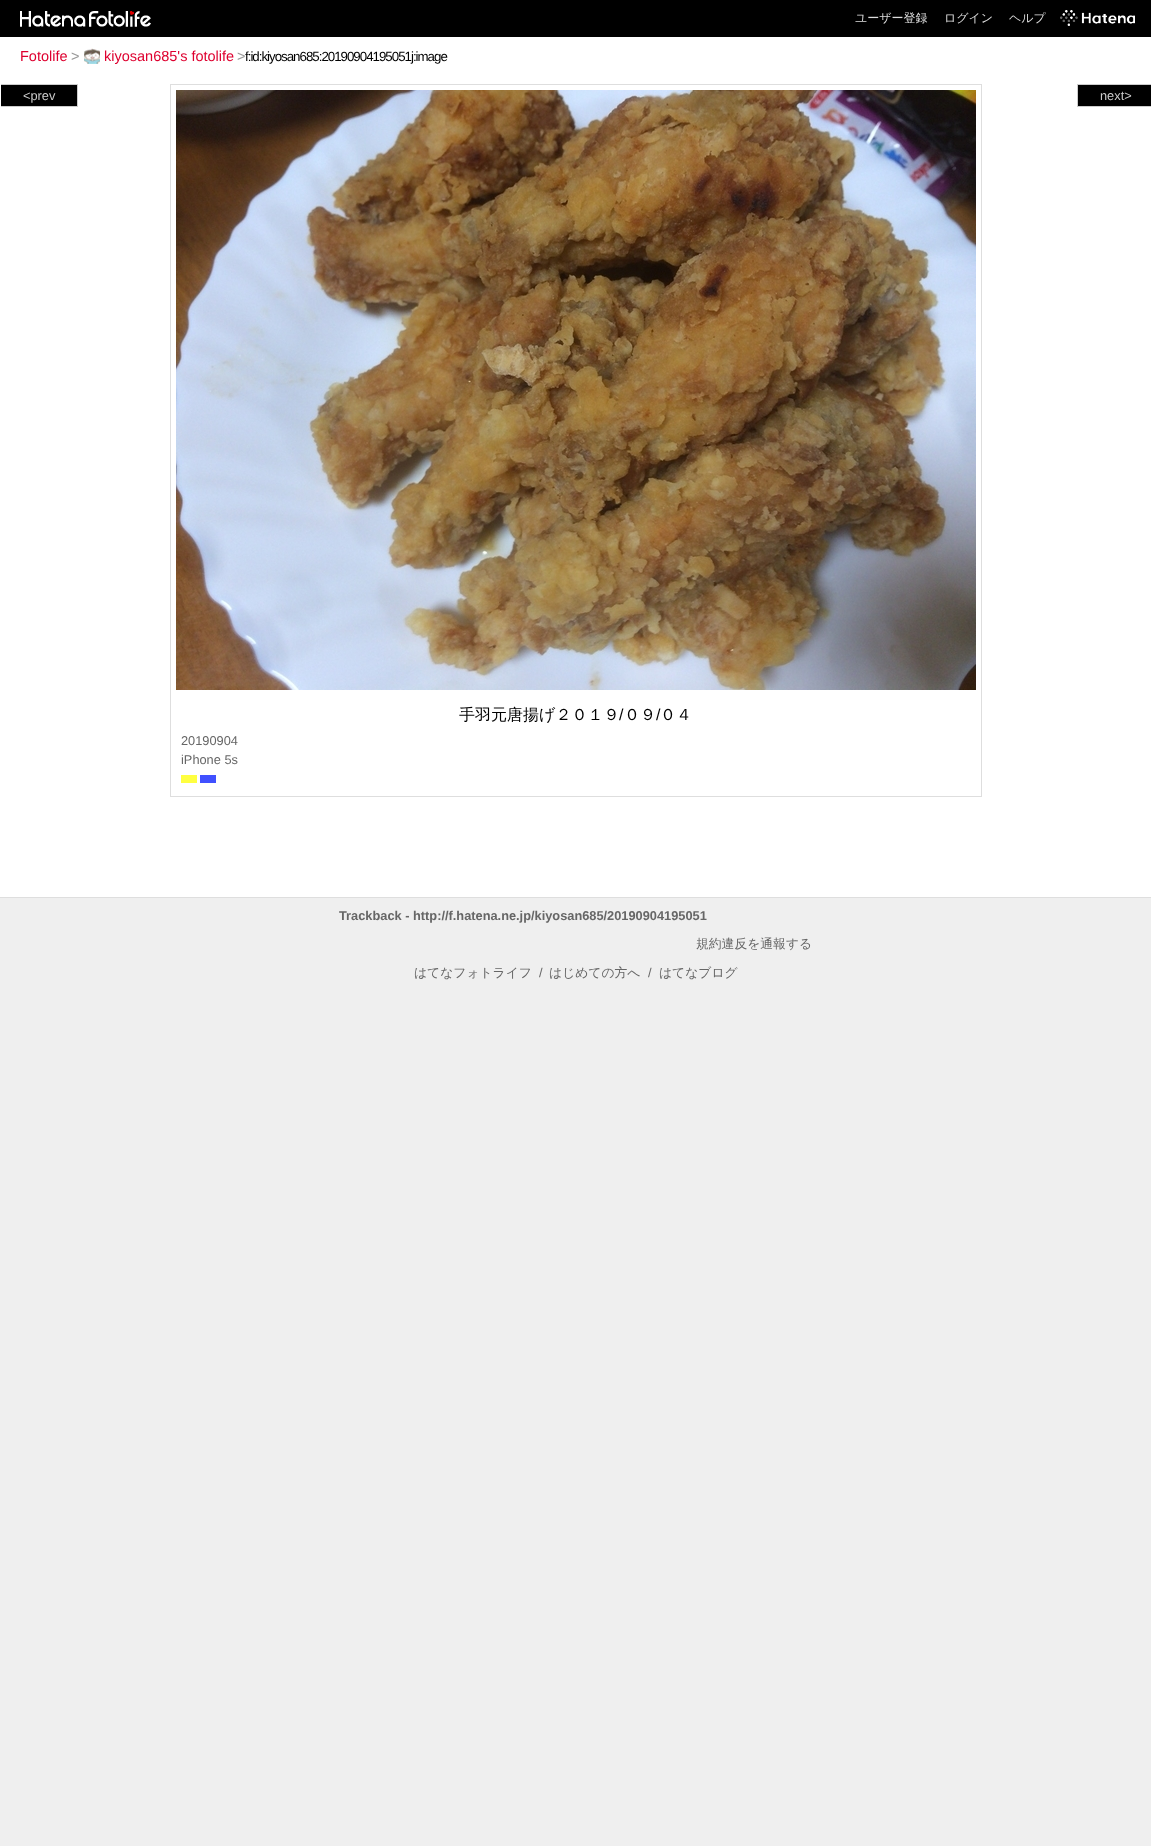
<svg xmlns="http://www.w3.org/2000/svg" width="1151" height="1846">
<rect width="100%" height="100%" fill="#efefef"/>
<rect width="1151" height="37" fill="#000"/>
<image x="20" y="11" width="66" height="16" href="media/1.png"/>
<image x="89" y="11" width="62" height="16" href="media/2.png"/>
<text x="855" y="22" style="font-family:WenQuanYi Zen Hei;font-size:12px;font-weight:500;fill:#ddd">ユーザー登録</text>
<text x="944" y="22" style="font-family:WenQuanYi Zen Hei;font-size:12px;font-weight:500;fill:#ddd">ログイン</text>
<text x="1009" y="22" style="font-family:WenQuanYi Zen Hei;font-size:12px;font-weight:500;fill:#ddd">ヘルプ</text>
<image x="1060" y="10" width="75" height="16" href="media/3.png"/>
<rect y="37" width="1151" height="860" fill="#fff"/>
<text x="20" y="61" style="font-family:Liberation Sans;font-size:14.5px;fill:#de002f">Fotolife</text>
<text x="71" y="61" style="font-family:Liberation Sans;font-size:14.5px;fill:#999">&gt;</text>
<image x="84" y="48" width="16" height="16" href="media/4.png"/>
<text x="104" y="61" style="font-family:Liberation Sans;font-size:14.5px;fill:#de002f">kiyosan685's fotolife</text>
<text x="237" y="61" style="font-family:Liberation Sans;font-size:14.5px;fill:#999">&gt;</text>
<text x="245" y="61" style="font-family:Liberation Sans;font-size:13.3px;letter-spacing:-1px;fill:#000">f:id:kiyosan685:20190904195051j:image</text>
<rect y="897" width="1151" height="1" fill="#dedede"/>
<rect x="1" y="85" width="76" height="21" fill="#000"/>
<rect x="1" y="84" width="77" height="1" fill="#ccc"/>
<rect x="77" y="84" width="1" height="23" fill="#ccc"/>
<rect x="1" y="106" width="77" height="1" fill="#ccc"/>
<text x="23" y="100" style="font-family:Liberation Sans;font-size:12.8px;fill:#ccc">&lt;prev</text>
<rect x="1078" y="85" width="73" height="21" fill="#000"/>
<rect x="1077" y="84" width="74" height="1" fill="#ccc"/>
<rect x="1077" y="106" width="74" height="1" fill="#ccc"/>
<rect x="1077" y="84" width="1" height="23" fill="#ccc"/>
<text x="1100" y="100" style="font-family:Liberation Sans;font-size:12.8px;fill:#ccc">next&gt;</text>
<rect x="170.5" y="84.5" width="811" height="712" fill="none" stroke="#dedede"/>
<image x="176" y="90" width="800" height="600" href="media/5.png"/>
<text x="459" y="720" style="font-family:WenQuanYi Zen Hei;font-size:16px;font-weight:500;fill:#000">手羽元唐揚げ２０１９</text>
<text x="619" y="720" style="font-family:Liberation Sans;font-size:16px;fill:#000">/</text>
<text x="624" y="720" style="font-family:WenQuanYi Zen Hei;font-size:16px;font-weight:500;fill:#000">０９</text>
<text x="656" y="720" style="font-family:Liberation Sans;font-size:16px;fill:#000">/</text>
<text x="660" y="720" style="font-family:WenQuanYi Zen Hei;font-size:16px;font-weight:500;fill:#000">０４</text>
<text x="181" y="745" style="font-family:Liberation Sans;font-size:12.8px;fill:#666">20190904</text>
<text x="181" y="764" style="font-family:Liberation Sans;font-size:12.8px;fill:#666">iPhone 5s</text>
<rect x="181" y="775" width="16" height="8" fill="#ffff40"/>
<rect x="200" y="775" width="16" height="8" fill="#4050ff"/>
<text x="339" y="920" style="font-family:Liberation Sans;font-size:12.8px;font-weight:bold;fill:#666">Trackback - http://f.hatena.ne.jp/kiyosan685/20190904195051</text>
<text x="696" y="948" style="font-family:WenQuanYi Zen Hei;font-size:12.8px;font-weight:500;fill:#666">規約違反を通報する</text>
<text x="414" y="977" style="font-family:WenQuanYi Zen Hei;font-size:12.8px;font-weight:500;fill:#666">はてなフォトライフ</text>
<text x="539" y="977" style="font-family:Liberation Sans;font-size:12.8px;fill:#666">/</text>
<text x="549" y="977" style="font-family:WenQuanYi Zen Hei;font-size:12.8px;font-weight:500;fill:#666">はじめての方へ</text>
<text x="648" y="977" style="font-family:Liberation Sans;font-size:12.8px;fill:#666">/</text>
<text x="659" y="977" style="font-family:WenQuanYi Zen Hei;font-size:12.8px;font-weight:500;fill:#666">はてなブログ</text>
</svg>
